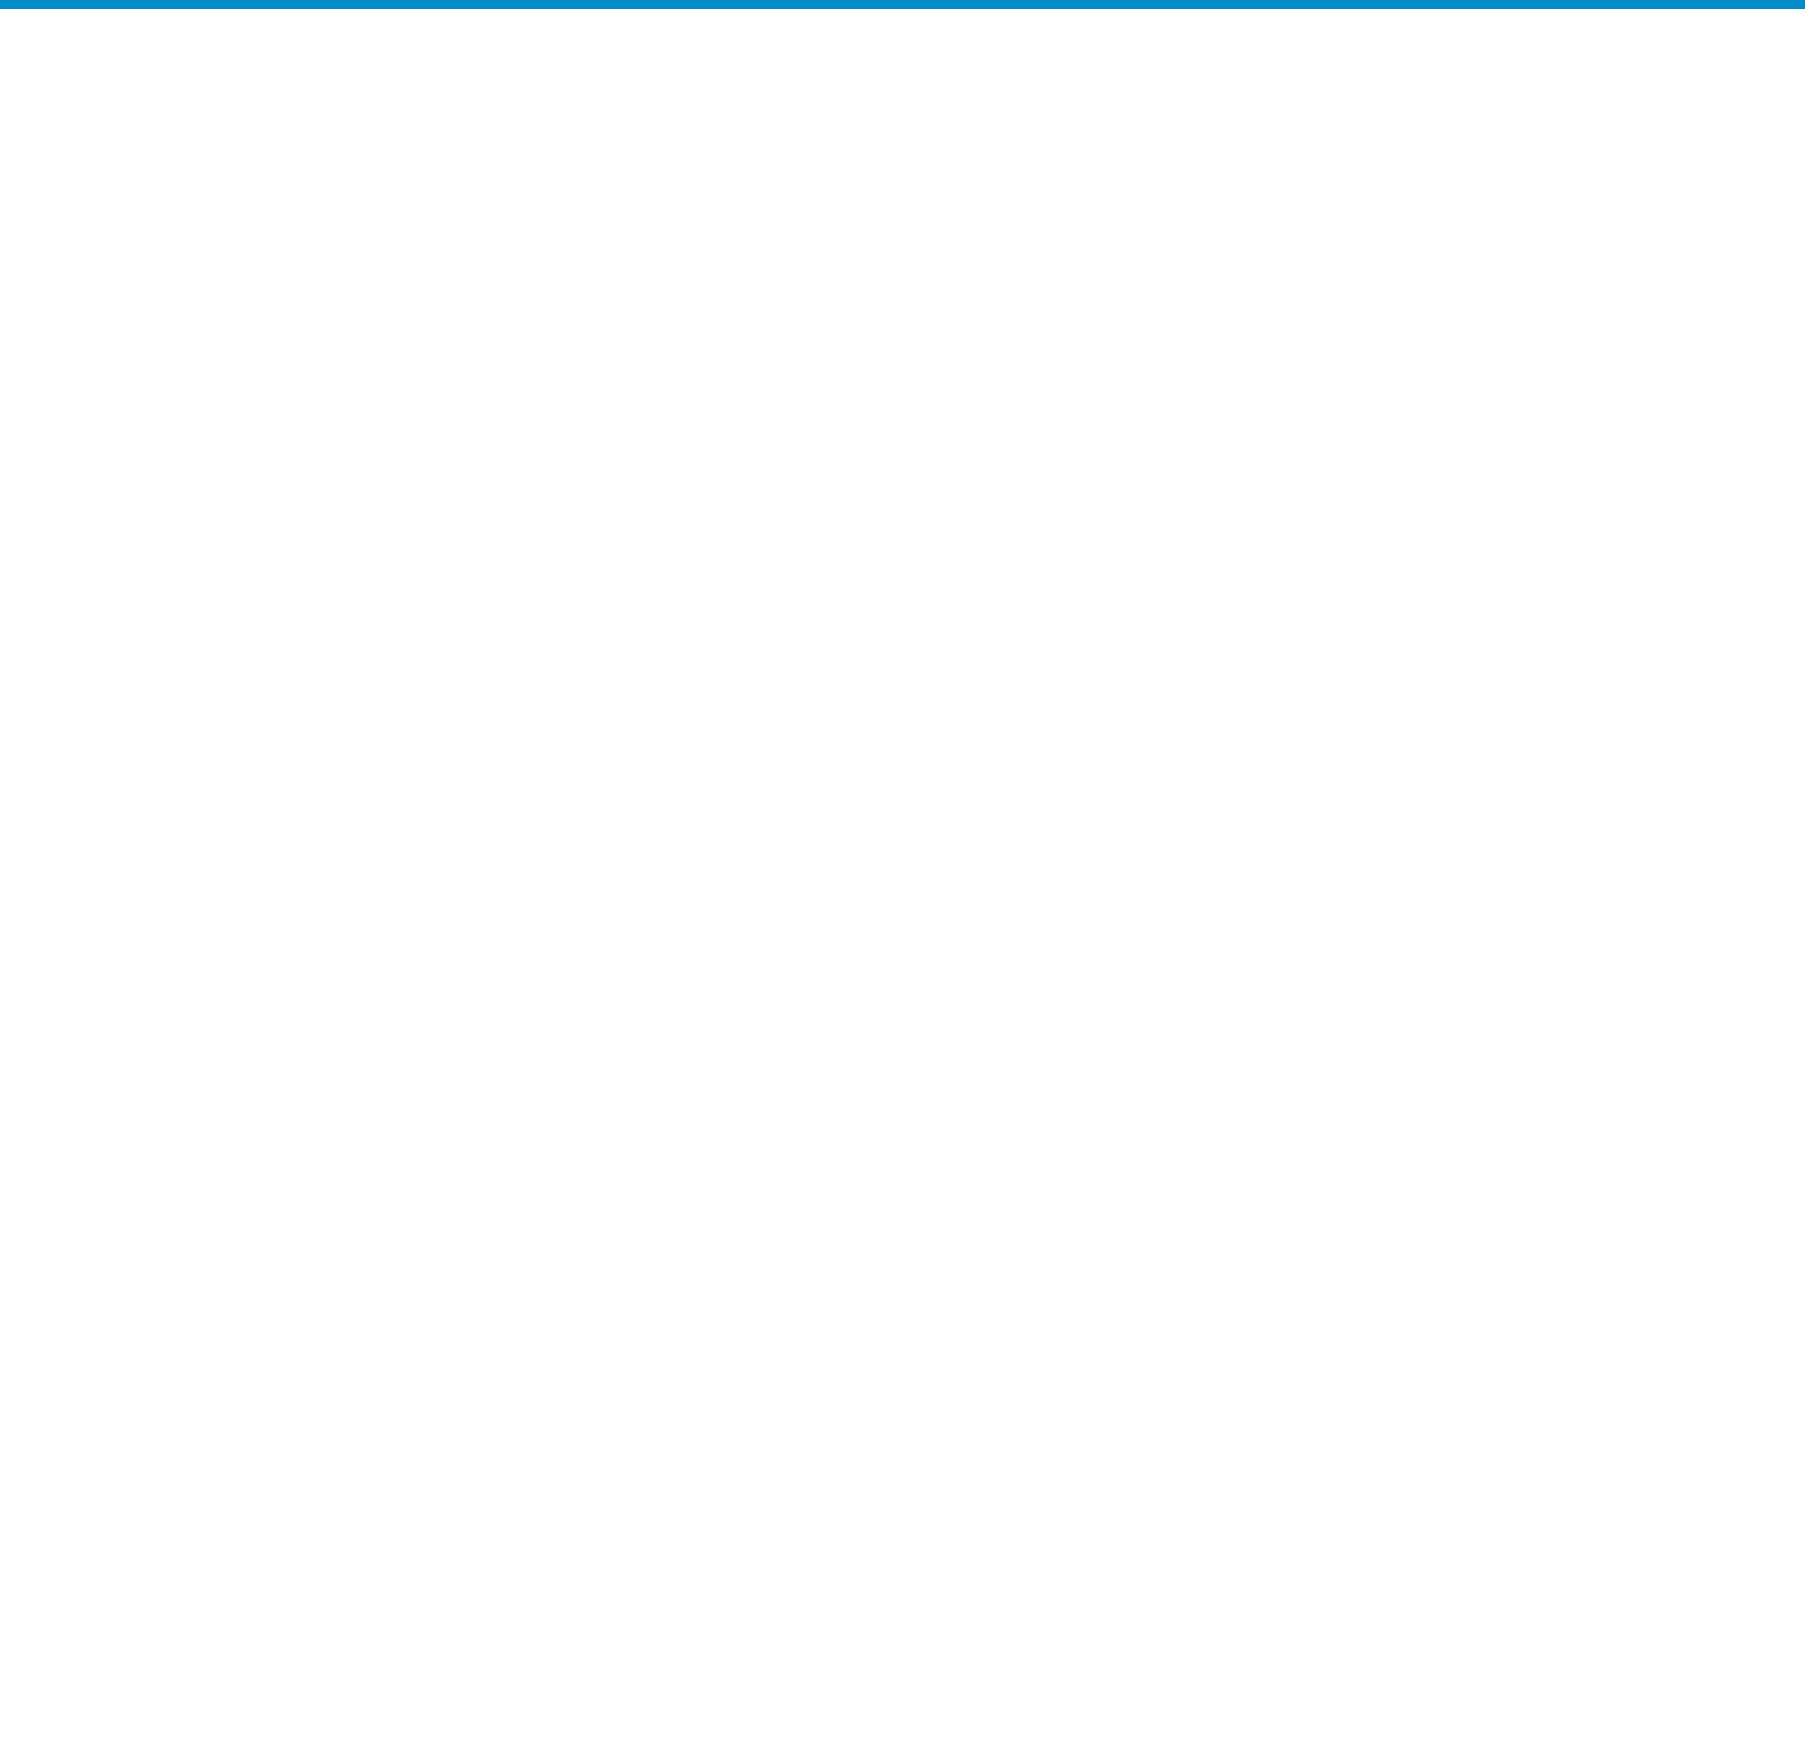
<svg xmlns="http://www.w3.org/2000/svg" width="1805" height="1749">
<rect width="100%" height="100%" fill="#fff"/>
<rect width="1805" height="9" fill="#018bc8"/>
</svg>
